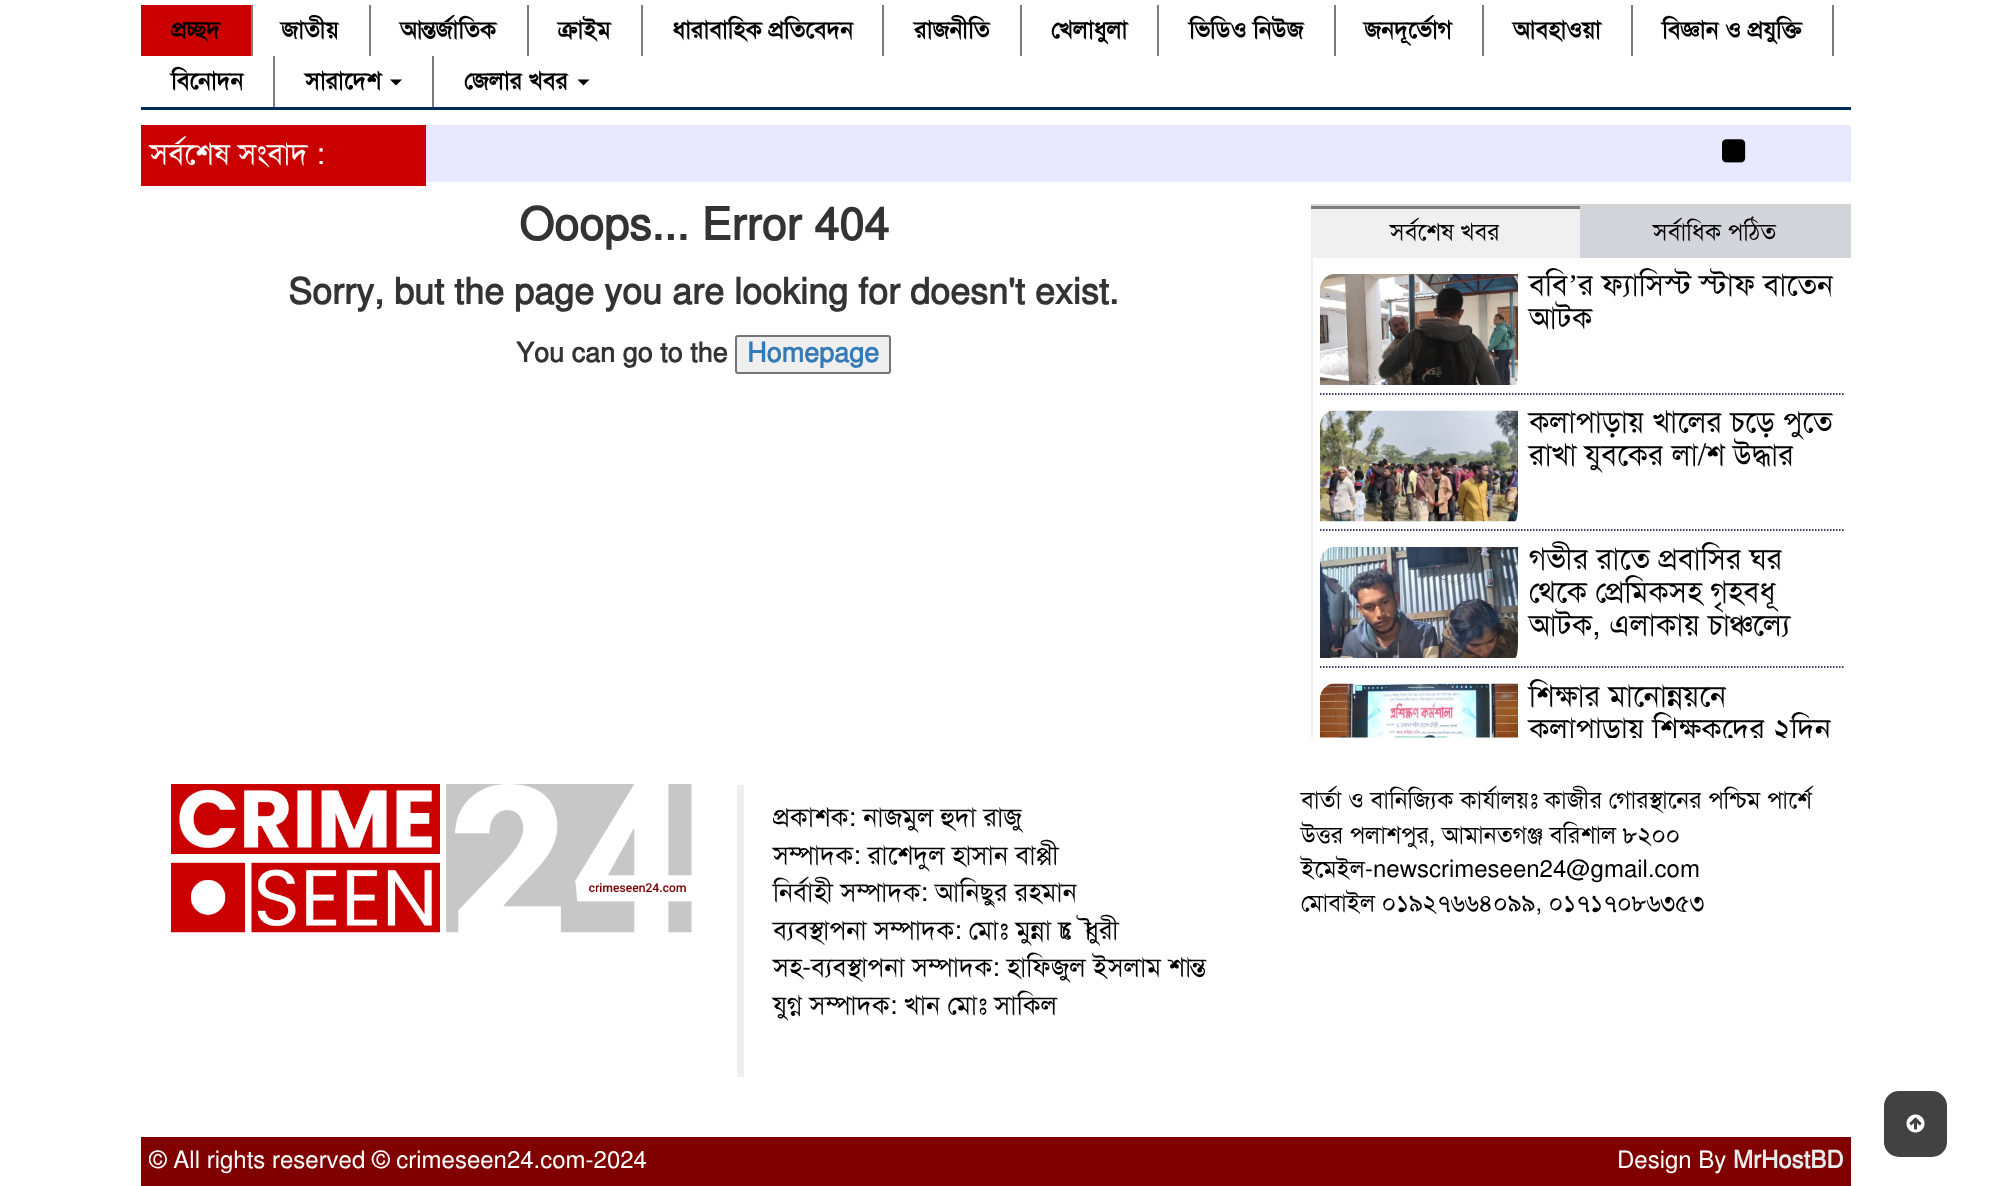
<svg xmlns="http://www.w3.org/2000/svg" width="1991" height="1186">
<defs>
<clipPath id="clip1"><rect x="1320" y="675" width="524" height="63"/></clipPath>
<clipPath id="clip2"><rect x="149" y="1145" width="825" height="34"/></clipPath>
</defs>
<rect width="100%" height="100%" fill="#fff"/>
<rect x="141" y="107" width="1710" height="3" fill="#012b5b"/>
<rect x="251" y="5" width="2" height="51" fill="#7c7d7a"/>
<rect x="141" y="5" width="110" height="51" fill="#ca0000"/>
<text x="171" y="38" style="font-family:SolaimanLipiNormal;font-size:24px;font-weight:bold;fill:#000">প্রচ্ছদ</text>
<rect x="369" y="5" width="2" height="51" fill="#7c7d7a"/>
<text x="281" y="38" style="font-family:SolaimanLipiNormal;font-size:24px;font-weight:bold;fill:#000">জাতীয়</text>
<rect x="527" y="5" width="2" height="51" fill="#7c7d7a"/>
<text x="400" y="38" style="font-family:SolaimanLipiNormal;font-size:24px;font-weight:bold;fill:#000">আন্তর্জাতিক</text>
<rect x="641" y="5" width="2" height="51" fill="#7c7d7a"/>
<text x="558" y="38" style="font-family:SolaimanLipiNormal;font-size:24px;font-weight:bold;fill:#000">ক্রাইম</text>
<rect x="882" y="5" width="2" height="51" fill="#7c7d7a"/>
<text x="672" y="38" style="font-family:SolaimanLipiNormal;font-size:24px;font-weight:bold;fill:#000">ধারাবাহিক প্রতিবেদন</text>
<rect x="1020" y="5" width="2" height="51" fill="#7c7d7a"/>
<text x="914" y="38" style="font-family:SolaimanLipiNormal;font-size:24px;font-weight:bold;fill:#000">রাজনীতি</text>
<rect x="1157" y="5" width="2" height="51" fill="#7c7d7a"/>
<text x="1051" y="38" style="font-family:SolaimanLipiNormal;font-size:24px;font-weight:bold;fill:#000">খেলাধুলা</text>
<rect x="1334" y="5" width="2" height="51" fill="#7c7d7a"/>
<text x="1189" y="38" style="font-family:SolaimanLipiNormal;font-size:24px;font-weight:bold;fill:#000">ভিডিও নিউজ</text>
<rect x="1482" y="5" width="2" height="51" fill="#7c7d7a"/>
<text x="1364" y="38" style="font-family:SolaimanLipiNormal;font-size:24px;font-weight:bold;fill:#000">জনদূর্ভোগ</text>
<rect x="1631" y="5" width="2" height="51" fill="#7c7d7a"/>
<text x="1513" y="38" style="font-family:SolaimanLipiNormal;font-size:24px;font-weight:bold;fill:#000">আবহাওয়া</text>
<rect x="1832" y="5" width="2" height="51" fill="#7c7d7a"/>
<text x="1662" y="38" style="font-family:SolaimanLipiNormal;font-size:24px;font-weight:bold;fill:#000">বিজ্ঞান ও প্রযুক্তি</text>
<rect x="273" y="56" width="2" height="51" fill="#7c7d7a"/>
<text x="171" y="89" style="font-family:SolaimanLipiNormal;font-size:24px;font-weight:bold;fill:#000">বিনোদন</text>
<rect x="432" y="56" width="2" height="51" fill="#7c7d7a"/>
<text x="305" y="89" style="font-family:SolaimanLipiNormal;font-size:24px;font-weight:bold;fill:#000">সারাদেশ</text>
<path d="M390 79.5h12l-6 6z" fill="#000"/>
<text x="464" y="89" style="font-family:SolaimanLipiNormal;font-size:24px;font-weight:bold;fill:#000">জেলার খবর</text>
<path d="M577.5 79.5h12l-6 6z" fill="#000"/>
<rect x="141" y="125" width="285" height="61" fill="#ca0000"/>
<text x="150" y="164" style="font-family:SolaimanLipiNormal;font-size:30px;fill:#fff">সর্বশেষ সংবাদ :</text>
<rect x="426" y="125" width="1425" height="57" fill="#e8e8ff"/>
<image x="1722" y="139" width="24" height="24" href="media/1.png"/>
<text x="519" y="240" style="font-family:SolaimanLipiNormal;font-size:45px;font-weight:bold;fill:#333">Ooops... Error 404</text>
<text x="288" y="304" style="font-family:SolaimanLipiNormal;font-size:36px;font-weight:bold;fill:#333">Sorry, but the page you are looking for doesn't exist.</text>
<text x="516" y="362" style="font-family:SolaimanLipiNormal;font-size:27px;font-weight:bold;fill:#333">You can go to the</text>
<rect x="736" y="336" width="154" height="37" rx="2" fill="#efefef" stroke="#767676" stroke-width="2"/>
<text x="747" y="362" style="font-family:SolaimanLipiNormal;font-size:27px;font-weight:bold;fill:#337ab7">Homepage</text>
<rect x="1311" y="204" width="540" height="54" fill="#d2d5db"/>
<rect x="1311" y="209" width="269" height="49" fill="#f0f0f0"/>
<rect x="1311" y="206" width="269" height="3" fill="#7c7d7a"/>
<text x="1390" y="240" style="font-family:SolaimanLipiNormal;font-size:24px;fill:#000">সর্বশেষ খবর</text>
<rect x="1580" y="204" width="271" height="5" fill="#d2d2d2"/>
<text x="1653" y="240" style="font-family:SolaimanLipiNormal;font-size:24px;fill:#000">সর্বাধিক পঠিত</text>
<rect x="1311" y="258" width="2" height="480" fill="#f0f0f0"/>
<path d="M1320 394h523.5" fill="none" stroke="#00003a" stroke-width="1.5" stroke-dasharray="1.5 1.5"/>
<image x="1320" y="274" width="198" height="111" href="media/2.png"/>
<text x="1529" y="295" style="font-family:SolaimanLipiNormal;font-size:30px;fill:#000">ববি</text>
<text x="1568" y="295" style="font-family:Liberation Serif;font-size:30px;fill:#000">’</text>
<text x="1578" y="295" style="font-family:SolaimanLipiNormal;font-size:30px;fill:#000">র ফ্যাসিস্ট স্টাফ বাতেন</text>
<text x="1529" y="328" style="font-family:SolaimanLipiNormal;font-size:30px;fill:#000">আটক</text>
<path d="M1320 530h523.5" fill="none" stroke="#00003a" stroke-width="1.5" stroke-dasharray="1.5 1.5"/>
<image x="1320" y="410" width="198" height="112" href="media/3.png"/>
<text x="1529" y="432" style="font-family:SolaimanLipiNormal;font-size:30px;fill:#000">কলাপাড়ায় খালের চড়ে পুতে</text>
<text x="1529" y="465" style="font-family:SolaimanLipiNormal;font-size:30px;fill:#000">রাখা যুবকের লা/শ উদ্ধার</text>
<path d="M1320 667h523.5" fill="none" stroke="#00003a" stroke-width="1.5" stroke-dasharray="1.5 1.5"/>
<image x="1320" y="547" width="198" height="111" href="media/4.png"/>
<text x="1529" y="569" style="font-family:SolaimanLipiNormal;font-size:30px;fill:#000">গভীর রাতে প্রবাসির ঘর</text>
<text x="1529" y="602" style="font-family:SolaimanLipiNormal;font-size:30px;fill:#000">থেকে প্রেমিকসহ গৃহবধূ</text>
<text x="1529" y="635" style="font-family:SolaimanLipiNormal;font-size:30px;fill:#000">আটক, এলাকায় চাঞ্চল্যে</text>
<image x="1320" y="683" width="198" height="55" href="media/5.png"/>
<text x="1529" y="706" style="font-family:SolaimanLipiNormal;font-size:30px;fill:#000">শিক্ষার মানোন্নয়নে</text>
<g clip-path="url(#clip1)">
<text x="1529" y="739" style="font-family:SolaimanLipiNormal;font-size:30px;fill:#000">কলাপাড়ায় শিক্ষকদের ২দিন</text>
</g>
<image x="171" y="784" width="521" height="149" href="media/6.png"/>
<rect x="737" y="785" width="7" height="292" fill="#eee"/>
<text x="773" y="826" style="font-family:SolaimanLipiNormal;font-size:26.25px;fill:#000">প্রকাশক: নাজমুল হুদা রাজু</text>
<text x="773" y="864" style="font-family:SolaimanLipiNormal;font-size:26.25px;fill:#000">সম্পাদক: রাশেদুল হাসান বাপ্পী</text>
<text x="773" y="901" style="font-family:SolaimanLipiNormal;font-size:26.25px;fill:#000">নির্বাহী সম্পাদক: আনিছুর রহমান</text>
<text x="773" y="939" style="font-family:SolaimanLipiNormal;font-size:26.25px;fill:#000">ব্যবস্থাপনা সম্পাদক: মোঃ মুন্না চৌধুরী</text>
<text x="773" y="976" style="font-family:SolaimanLipiNormal;font-size:26.25px;fill:#000">সহ-ব্যবস্থাপনা সম্পাদক: হাফিজুল ইসলাম শান্ত</text>
<text x="773" y="1014" style="font-family:SolaimanLipiNormal;font-size:26.25px;fill:#000">যুগ্ন সম্পাদক: খান মোঃ সাকিল</text>
<text x="1301" y="808" style="font-family:SolaimanLipiNormal;font-size:24px;fill:#000">বার্তা ও বানিজ্যিক কার্যালয়ঃ কাজীর গোরস্থানের পশ্চিম পার্শে</text>
<text x="1301" y="843" style="font-family:SolaimanLipiNormal;font-size:24px;fill:#000">উত্তর পলাশপুর, আমানতগঞ্জ বরিশাল ৮২০০</text>
<text x="1301" y="877" style="font-family:SolaimanLipiNormal;font-size:24px;fill:#000">ইমেইল-newscrimeseen24@gmail.com</text>
<text x="1301" y="911" style="font-family:SolaimanLipiNormal;font-size:24px;fill:#000">মোবাইল ০১৯২৭৬৬৪০৯৯, ০১৭১৭০৮৬৩৫৩</text>
<rect x="1884" y="1091" width="63" height="66" rx="15" fill="#424242"/>
<image x="1906" y="1114" width="19" height="19" href="media/7.png"/>
<rect x="141" y="1137" width="1710" height="49" fill="#800000"/>
<g clip-path="url(#clip2)">
<text x="149" y="1168" style="font-family:SolaimanLipiNormal;font-size:24px;fill:#fff">© All rights reserved © crimeseen24.com-2024</text>
</g>
<text x="1617" y="1168" style="font-family:SolaimanLipiNormal;font-size:24px;fill:#fff">Design By</text>
<text x="1733" y="1168" style="font-family:SolaimanLipiNormal;font-size:24px;font-weight:bold;fill:#e7ebec">MrHostBD</text>
</svg>
